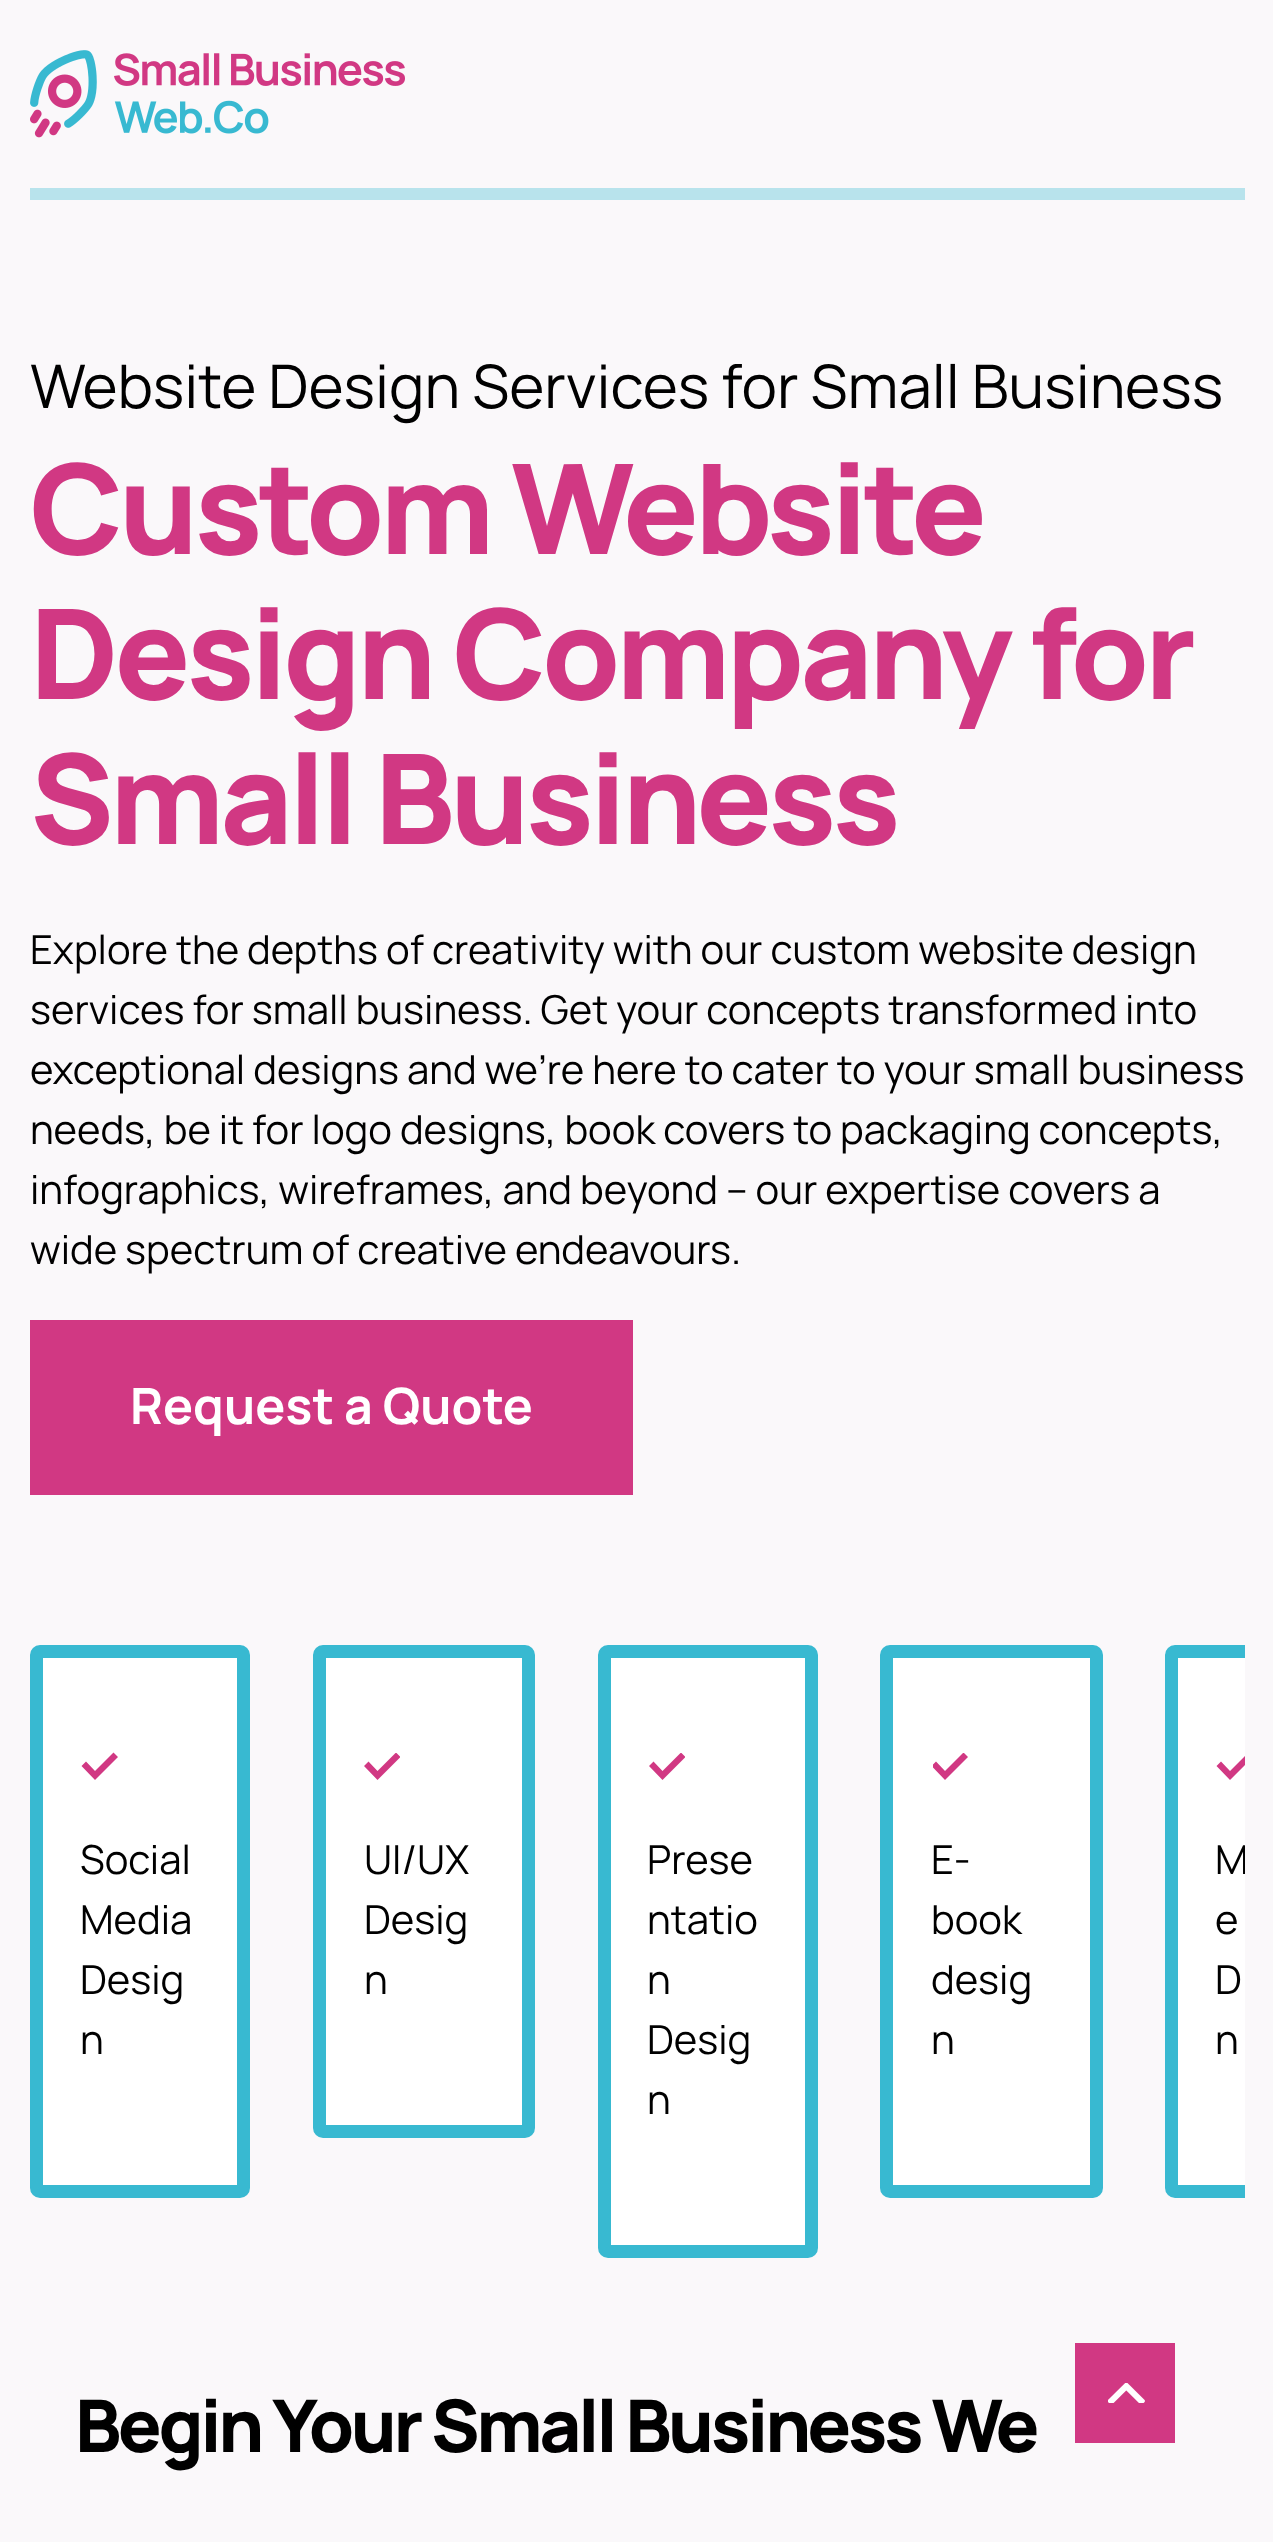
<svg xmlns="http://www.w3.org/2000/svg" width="1273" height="2542">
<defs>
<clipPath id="clip1"><rect x="363" y="1753" width="37" height="27"/></clipPath>
<clipPath id="clip2"><rect x="648" y="1753" width="37" height="27"/></clipPath>
<clipPath id="clip3"><rect x="933" y="1753" width="37" height="27"/></clipPath>
<clipPath id="clip4"><rect x="30" y="1645" width="1215" height="613"/></clipPath>
<clipPath id="clip5"><rect x="1215" y="1753" width="30" height="27"/></clipPath>
</defs>
<rect width="100%" height="100%" fill="#faf8fa"/>
<image x="30" y="50" width="375" height="88" href="media/1.png"/>
<rect x="30" y="188" width="1215" height="12" fill="#b8e3ec"/>
<text x="30" y="408" style="font-family:Manrope;font-size:60px;fill:#000">Website Design Services for Small Business</text>
<text x="30" y="554" style="font-family:Manrope;font-size:125px;font-weight:800;letter-spacing:-4.25px;fill:#d13883">Custom Website</text>
<text x="30" y="699" style="font-family:Manrope;font-size:125px;font-weight:800;letter-spacing:-4.25px;fill:#d13883">Design Company for</text>
<text x="30" y="844" style="font-family:Manrope;font-size:125px;font-weight:800;letter-spacing:-4.25px;fill:#d13883">Small Business</text>
<text x="30" y="964" style="font-family:Manrope;font-size:40px;fill:#000">Explore the depths of creativity with our custom website design</text>
<text x="30" y="1024" style="font-family:Manrope;font-size:40px;fill:#000">services for small business. Get your concepts transformed into</text>
<text x="30" y="1084" style="font-family:Manrope;font-size:40px;fill:#000">exceptional designs and we’re here to cater to your small business</text>
<text x="30" y="1144" style="font-family:Manrope;font-size:40px;fill:#000">needs, be it for logo designs, book covers to packaging concepts,</text>
<text x="30" y="1204" style="font-family:Manrope;font-size:40px;fill:#000">infographics, wireframes, and beyond – our expertise covers a</text>
<text x="30" y="1264" style="font-family:Manrope;font-size:40px;fill:#000">wide spectrum of creative endeavours.</text>
<rect x="30" y="1320" width="603" height="175" fill="#d13883"/>
<text x="130" y="1424" style="font-family:Manrope;font-size:50px;font-weight:bold;fill:#fff">Request a Quote</text>
<rect x="36.5" y="1651.5" width="207" height="540" rx="3.5" fill="#fff" stroke="#38b9d1" stroke-width="13"/>
<path d="M86 1761.5l-4.5 4.5l13.5 14l23-23l-4.5-4.5l-18.5 18.5z" fill="#d13883" fill-rule="evenodd"/>
<text x="80" y="1874" style="font-family:Manrope;font-size:40px;fill:#000">Social</text>
<text x="80" y="1934" style="font-family:Manrope;font-size:40px;fill:#000">Media</text>
<text x="80" y="1994" style="font-family:Manrope;font-size:40px;fill:#000">Desig</text>
<text x="80" y="2054" style="font-family:Manrope;font-size:40px;fill:#000">n</text>
<rect x="319.5" y="1651.5" width="209" height="480" rx="3.5" fill="#fff" stroke="#38b9d1" stroke-width="13"/>
<g clip-path="url(#clip1)">
<path d="M368.5 1761.5l-4.5 4.5l13.5 14l23-23l-4.5-4.5l-18.5 18.5z" fill="#d13883" fill-rule="evenodd"/>
</g>
<text x="364" y="1874" style="font-family:Manrope;font-size:40px;fill:#000">UI/UX</text>
<text x="364" y="1934" style="font-family:Manrope;font-size:40px;fill:#000">Desig</text>
<text x="364" y="1994" style="font-family:Manrope;font-size:40px;fill:#000">n</text>
<rect x="604.5" y="1651.5" width="207" height="600" rx="3.5" fill="#fff" stroke="#38b9d1" stroke-width="13"/>
<g clip-path="url(#clip2)">
<path d="M653.5 1761.5l-4.5 4.5l13.5 14l23-23l-4.5-4.5l-18.5 18.5z" fill="#d13883" fill-rule="evenodd"/>
</g>
<text x="647" y="1874" style="font-family:Manrope;font-size:40px;fill:#000">Prese</text>
<text x="647" y="1934" style="font-family:Manrope;font-size:40px;fill:#000">ntatio</text>
<text x="647" y="1994" style="font-family:Manrope;font-size:40px;fill:#000">n</text>
<text x="647" y="2054" style="font-family:Manrope;font-size:40px;fill:#000">Desig</text>
<text x="647" y="2114" style="font-family:Manrope;font-size:40px;fill:#000">n</text>
<rect x="886.5" y="1651.5" width="210" height="540" rx="3.5" fill="#fff" stroke="#38b9d1" stroke-width="13"/>
<g clip-path="url(#clip3)">
<path d="M936 1761.5l-4.5 4.5l13.5 14l23-23l-4.5-4.5l-18.5 18.5z" fill="#d13883" fill-rule="evenodd"/>
</g>
<text x="931" y="1874" style="font-family:Manrope;font-size:40px;fill:#000">E-</text>
<text x="931" y="1934" style="font-family:Manrope;font-size:40px;fill:#000">book</text>
<text x="931" y="1994" style="font-family:Manrope;font-size:40px;fill:#000">desig</text>
<text x="931" y="2054" style="font-family:Manrope;font-size:40px;fill:#000">n</text>
<path d="M1175 1645h70v553h-70c-5.5 0-10-4.5-10-10v-533c0-5.5 4.5-10 10-10z" fill="#fff"/>
<g clip-path="url(#clip4)">
<rect x="1171.5" y="1651.5" width="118" height="540" rx="3.5" fill="none" stroke="#38b9d1" stroke-width="13"/>
</g>
<g clip-path="url(#clip5)">
<path d="M1221 1761.5l-4.5 4.5l13.5 14l23-23l-4.5-4.5l-18.5 18.5z" fill="#d13883" fill-rule="evenodd"/>
</g>
<g clip-path="url(#clip4)">
<text x="1215" y="1874" style="font-family:Manrope;font-size:40px;fill:#000">M</text>
</g>
<text x="1215" y="1934" style="font-family:Manrope;font-size:40px;fill:#000">e</text>
<text x="1215" y="1994" style="font-family:Manrope;font-size:40px;fill:#000">D</text>
<text x="1215" y="2054" style="font-family:Manrope;font-size:40px;fill:#000">n</text>
<text x="75" y="2452" style="font-family:Manrope;font-size:72.5px;font-weight:800;letter-spacing:-3.4px;fill:#000">Begin Your Small Business We</text>
<rect x="1075" y="2343" width="100" height="100" fill="#d13883"/>
<image x="1108" y="2383" width="37" height="20" href="media/2.png"/>
</svg>
